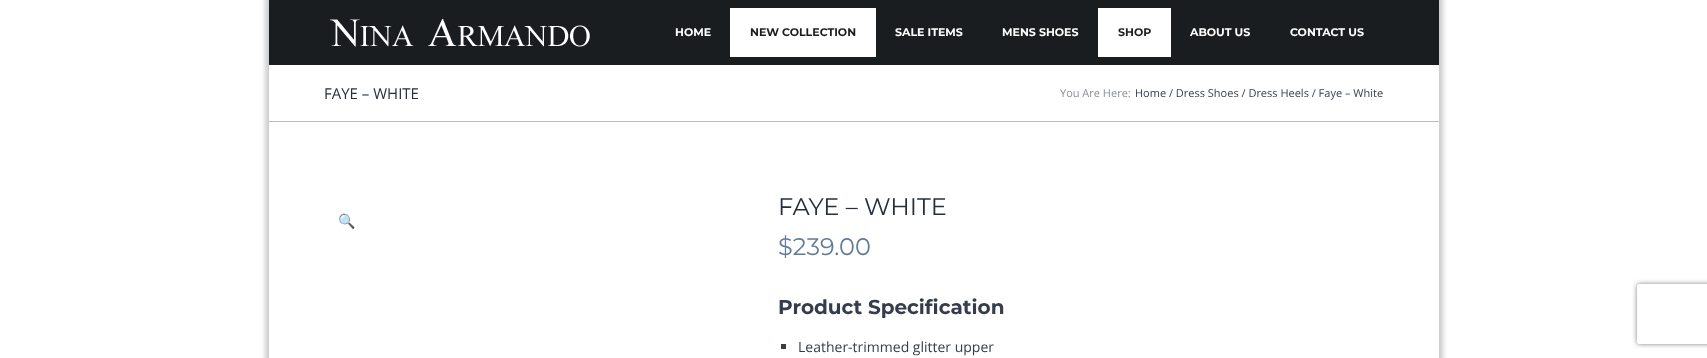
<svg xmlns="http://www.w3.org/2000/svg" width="1707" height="358">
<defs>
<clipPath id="clip1"><path d="M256 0h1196v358h-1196zm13 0h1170v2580h-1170z" clip-rule="evenodd"/></clipPath>
<clipPath id="clip2"><path d="M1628 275h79v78h-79zm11 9h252c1 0 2 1 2 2v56c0 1-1 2-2 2h-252c-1 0-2-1-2-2v-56c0-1 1-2 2-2z" clip-rule="evenodd"/></clipPath>
</defs>
<rect width="100%" height="100%" fill="#fff"/>
<g clip-path="url(#clip1)">
<rect x="265" y="-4" width="1178" height="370" fill="#00000033" filter="blur(2.5px)"/>
</g>
<rect x="269" width="1170" height="65" fill="#1a1d1f"/>
<image x="330" y="19" width="260" height="28" href="media/1.png"/>
<text x="675" y="36" style="font-family:'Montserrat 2';font-size:11px;font-weight:100;fill:#fff">HOME</text>
<rect x="730" y="8" width="146" height="49" fill="#fff"/>
<text x="750" y="36" style="font-family:'Montserrat 2';font-size:11px;font-weight:100;fill:#1a1d1f">NEW COLLECTION</text>
<text x="895" y="36" style="font-family:'Montserrat 2';font-size:11px;font-weight:100;fill:#fff">SALE ITEMS</text>
<text x="1002" y="36" style="font-family:'Montserrat 2';font-size:11px;font-weight:100;fill:#fff">MENS SHOES</text>
<rect x="1098" y="8" width="73" height="49" fill="#fff"/>
<text x="1118" y="36" style="font-family:'Montserrat 2';font-size:11px;font-weight:100;fill:#1a1d1f">SHOP</text>
<text x="1190" y="36" style="font-family:'Montserrat 2';font-size:11px;font-weight:100;fill:#fff">ABOUT US</text>
<text x="1290" y="36" style="font-family:'Montserrat 2';font-size:11px;font-weight:100;fill:#fff">CONTACT US</text>
<rect x="269" y="121" width="1170" height="1" fill="#b9bcc0"/>
<text x="324" y="99" style="font-family:Open Sans;font-size:15px;fill:#262f3a">FAYE – WHITE</text>
<text x="1060" y="97" style="font-family:Open Sans;font-size:11px;fill:#8a8f97">You Are Here:</text>
<text x="1135" y="97" style="font-family:Open Sans;font-size:11px;fill:#353d4d">Home / Dress Shoes / Dress Heels / Faye – White</text>
<text x="338" y="226" style="font-family:Noto Color Emoji;font-size:14px;fill:#00e">🔍</text>
<text x="778" y="215" style="font-family:Montserrat;font-size:24px;font-weight:100;fill:#262f3a">FAYE – WHITE</text>
<text x="778" y="255" style="font-family:Montserrat;font-size:24px;font-weight:100;fill:#617c96">$239.00</text>
<text x="778" y="314" style="font-family:'Montserrat 2';font-size:20px;font-weight:100;fill:#353d4d">Product Specification</text>
<rect x="781" y="344" width="5" height="5" fill="#353d4d"/>
<text x="798" y="352" style="font-family:Open Sans;font-size:14px;fill:#353d4d">Leather-trimmed glitter upper</text>
<g clip-path="url(#clip2)">
<rect x="1637" y="284" width="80" height="60" rx="2" fill="#808080" filter="blur(2.5px)"/>
</g>
</svg>
